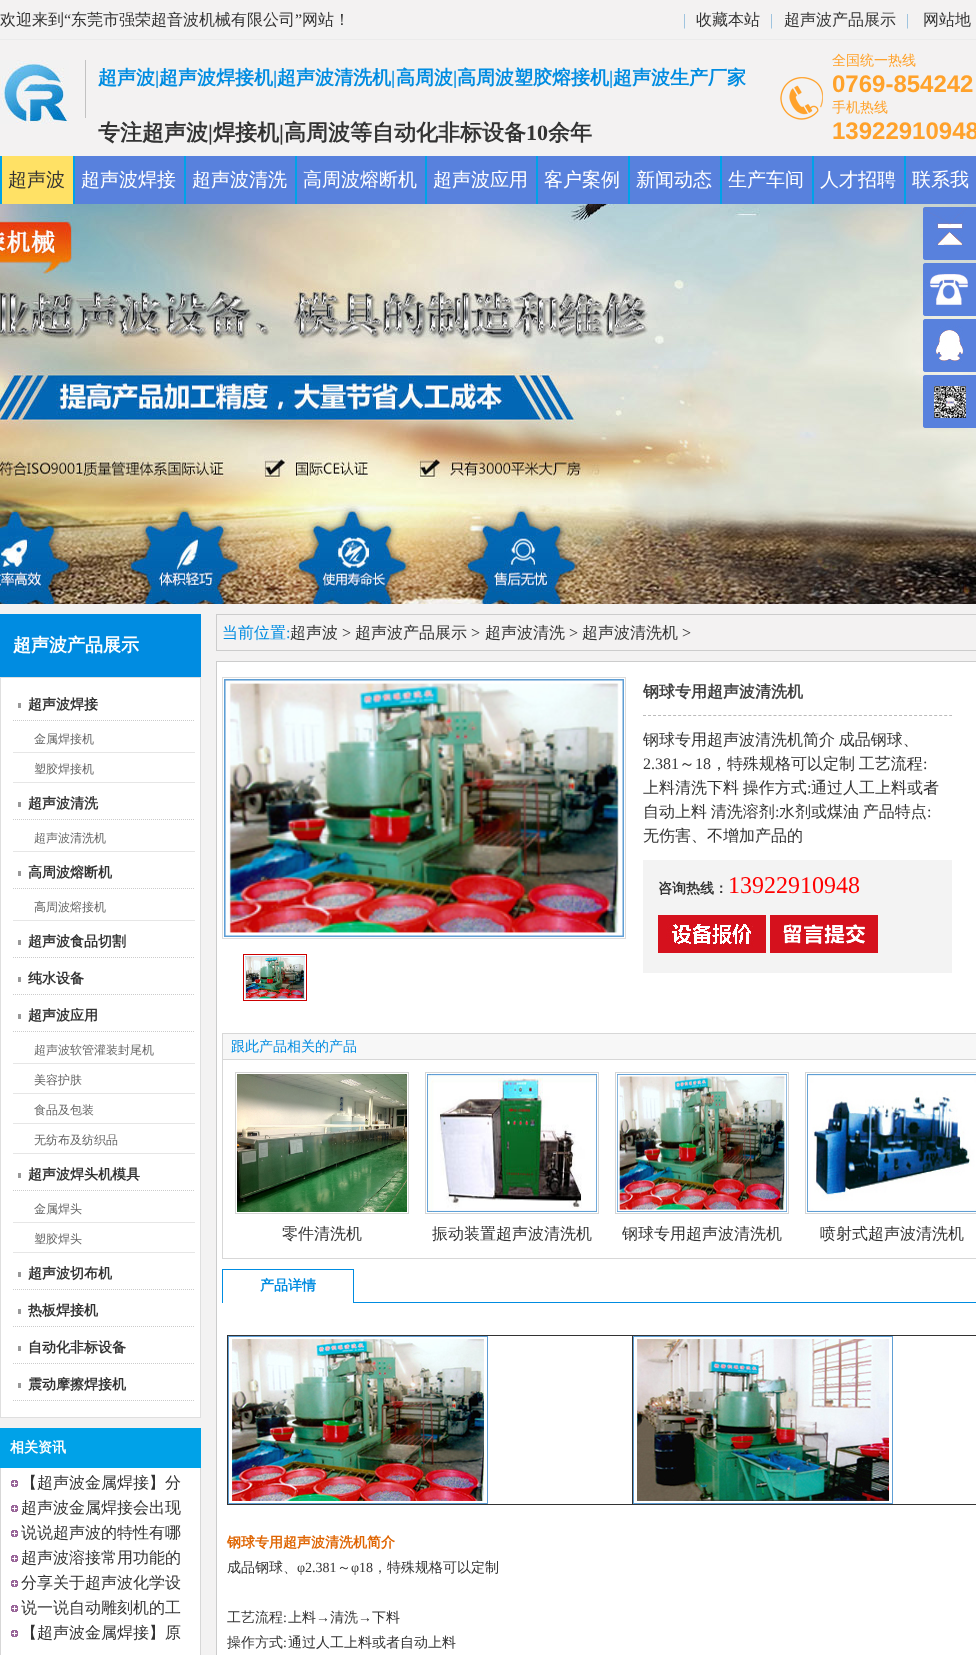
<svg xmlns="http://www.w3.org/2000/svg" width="976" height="1655">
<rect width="100%" height="100%" fill="#f3f2f2"/>
<rect y="39" width="976" height="1" fill="#ebebeb"/>
<text x="0" y="25" style="font-family:WenQuanYi Zen Hei;font-size:16px;font-weight:500;fill:#333">欢迎来到</text>
<text x="64" y="25" style="font-family:Liberation Serif;font-size:16px;fill:#333">“</text>
<text x="71" y="25" style="font-family:WenQuanYi Zen Hei;font-size:16px;font-weight:500;fill:#333">东莞市强荣超音波机械有限公司</text>
<text x="295" y="25" style="font-family:Liberation Serif;font-size:16px;fill:#333">”</text>
<text x="302" y="25" style="font-family:WenQuanYi Zen Hei;font-size:16px;font-weight:500;fill:#333">网站！</text>
<text x="683" y="25" style="font-family:Liberation Serif;font-size:16px;fill:#8cb9db">|</text>
<text x="696" y="25" style="font-family:WenQuanYi Zen Hei;font-size:16px;font-weight:500;fill:#333">收藏本站</text>
<text x="770" y="25" style="font-family:Liberation Serif;font-size:16px;fill:#8cb9db">|</text>
<text x="784" y="25" style="font-family:WenQuanYi Zen Hei;font-size:16px;font-weight:500;fill:#333">超声波产品展示</text>
<text x="906" y="25" style="font-family:Liberation Serif;font-size:16px;fill:#8cb9db">|</text>
<text x="923" y="25" style="font-family:WenQuanYi Zen Hei;font-size:16px;font-weight:500;fill:#333">网站地</text>
<image x="0" y="60" width="69" height="64" href="media/1.png"/>
<rect x="85" y="60" width="1" height="58" fill="#c2c2c2"/>
<text x="98" y="84" style="font-family:WenQuanYi Zen Hei;font-size:19px;font-weight:bold;fill:#008ce1">超声波</text>
<text x="155" y="84" style="font-family:Liberation Serif;font-size:19px;font-weight:bold;fill:#008ce1">|</text>
<text x="159" y="84" style="font-family:WenQuanYi Zen Hei;font-size:19px;font-weight:bold;fill:#008ce1">超声波焊接机</text>
<text x="273" y="84" style="font-family:Liberation Serif;font-size:19px;font-weight:bold;fill:#008ce1">|</text>
<text x="277" y="84" style="font-family:WenQuanYi Zen Hei;font-size:19px;font-weight:bold;fill:#008ce1">超声波清洗机</text>
<text x="391" y="84" style="font-family:Liberation Serif;font-size:19px;font-weight:bold;fill:#008ce1">|</text>
<text x="396" y="84" style="font-family:WenQuanYi Zen Hei;font-size:19px;font-weight:bold;fill:#008ce1">高周波</text>
<text x="453" y="84" style="font-family:Liberation Serif;font-size:19px;font-weight:bold;fill:#008ce1">|</text>
<text x="457" y="84" style="font-family:WenQuanYi Zen Hei;font-size:19px;font-weight:bold;fill:#008ce1">高周波塑胶熔接机</text>
<text x="609" y="84" style="font-family:Liberation Serif;font-size:19px;font-weight:bold;fill:#008ce1">|</text>
<text x="613" y="84" style="font-family:WenQuanYi Zen Hei;font-size:19px;font-weight:bold;fill:#008ce1">超声波生产厂家</text>
<text x="98" y="140" style="font-family:WenQuanYi Zen Hei;font-size:22px;font-weight:bold;fill:#333">专注超声波</text>
<text x="208" y="140" style="font-family:Liberation Serif;font-size:22px;font-weight:bold;fill:#333">|</text>
<text x="213" y="140" style="font-family:WenQuanYi Zen Hei;font-size:22px;font-weight:bold;fill:#333">焊接机</text>
<text x="279" y="140" style="font-family:Liberation Serif;font-size:22px;font-weight:bold;fill:#333">|</text>
<text x="284" y="140" style="font-family:WenQuanYi Zen Hei;font-size:22px;font-weight:bold;fill:#333">高周波等自动化非标设备</text>
<text x="526" y="140" style="font-family:Liberation Serif;font-size:22px;font-weight:bold;fill:#333">10</text>
<text x="548" y="140" style="font-family:WenQuanYi Zen Hei;font-size:22px;font-weight:bold;fill:#333">余年</text>
<image x="780" y="77" width="43" height="43" href="media/2.png"/>
<text x="832" y="65" style="font-family:WenQuanYi Zen Hei;font-size:14px;font-weight:500;fill:#ffa22b">全国统一热线</text>
<text x="832" y="92" style="font-family:Liberation Sans;font-size:24px;font-weight:bold;fill:#ffa22b">0769-854242</text>
<text x="832" y="112" style="font-family:WenQuanYi Zen Hei;font-size:14px;font-weight:500;fill:#ffa22b">手机热线</text>
<text x="832" y="139" style="font-family:Liberation Sans;font-size:24px;font-weight:bold;fill:#ffa22b">13922910948</text>
<rect x="75" y="156" width="901" height="48" fill="#5881dd"/>
<rect x="2" y="156" width="71" height="48" fill="#ffe165"/>
<rect y="156" width="2" height="48" fill="#00a2e8"/>
<text x="8" y="186" style="font-family:WenQuanYi Zen Hei;font-size:19px;font-weight:500;fill:#333">超声波</text>
<rect x="73" y="156" width="2" height="48" fill="#00a2e8"/>
<text x="81" y="186" style="font-family:WenQuanYi Zen Hei;font-size:19px;font-weight:500;fill:#fff">超声波焊接</text>
<rect x="184" y="156" width="2" height="48" fill="#00a2e8"/>
<text x="192" y="186" style="font-family:WenQuanYi Zen Hei;font-size:19px;font-weight:500;fill:#fff">超声波清洗</text>
<rect x="295" y="156" width="2" height="48" fill="#00a2e8"/>
<text x="303" y="186" style="font-family:WenQuanYi Zen Hei;font-size:19px;font-weight:500;fill:#fff">高周波熔断机</text>
<rect x="425" y="156" width="2" height="48" fill="#00a2e8"/>
<text x="433" y="186" style="font-family:WenQuanYi Zen Hei;font-size:19px;font-weight:500;fill:#fff">超声波应用</text>
<rect x="536" y="156" width="2" height="48" fill="#00a2e8"/>
<text x="544" y="186" style="font-family:WenQuanYi Zen Hei;font-size:19px;font-weight:500;fill:#fff">客户案例</text>
<rect x="628" y="156" width="2" height="48" fill="#00a2e8"/>
<text x="636" y="186" style="font-family:WenQuanYi Zen Hei;font-size:19px;font-weight:500;fill:#fff">新闻动态</text>
<rect x="720" y="156" width="2" height="48" fill="#00a2e8"/>
<text x="728" y="186" style="font-family:WenQuanYi Zen Hei;font-size:19px;font-weight:500;fill:#fff">生产车间</text>
<rect x="812" y="156" width="2" height="48" fill="#00a2e8"/>
<text x="820" y="186" style="font-family:WenQuanYi Zen Hei;font-size:19px;font-weight:500;fill:#fff">人才招聘</text>
<rect x="904" y="156" width="2" height="48" fill="#00a2e8"/>
<text x="912" y="186" style="font-family:WenQuanYi Zen Hei;font-size:19px;font-weight:500;fill:#fff">联系我</text>
<image x="0" y="204" width="976" height="400" href="media/3.png"/>
<rect x="923" y="207" width="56" height="53" rx="3" fill="#5881dd"/>
<image x="923" y="207" width="44" height="53" href="media/4.png"/>
<rect x="923" y="263" width="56" height="53" rx="3" fill="#5881dd"/>
<image x="923" y="263" width="45" height="53" href="media/5.png"/>
<rect x="923" y="319" width="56" height="53" rx="3" fill="#5881dd"/>
<image x="923" y="319" width="40" height="53" href="media/6.png"/>
<rect x="923" y="375" width="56" height="53" rx="3" fill="#5881dd"/>
<image x="923" y="375" width="43" height="53" href="media/7.png"/>
<rect y="614" width="201" height="63" fill="#008ce1"/>
<text x="13" y="651" style="font-family:WenQuanYi Zen Hei;font-size:18px;font-weight:bold;fill:#fff">超声波产品展示</text>
<rect x="0.5" y="677.5" width="200" height="740" fill="#fff" stroke="#dfdfdf"/>
<rect x="18" y="703" width="3" height="5" fill="#999"/>
<path d="M13 720.5h182" fill="none" stroke="#ccc" stroke-dasharray="1 1"/>
<text x="28" y="709" style="font-family:WenQuanYi Zen Hei;font-size:14px;font-weight:bold;fill:#333">超声波焊接</text>
<rect x="13" y="752" width="182" height="1" fill="#e6e6e6"/>
<text x="34" y="743" style="font-family:WenQuanYi Zen Hei;font-size:12px;font-weight:500;fill:#666">金属焊接机</text>
<rect x="13" y="782" width="182" height="1" fill="#e6e6e6"/>
<text x="34" y="773" style="font-family:WenQuanYi Zen Hei;font-size:12px;font-weight:500;fill:#666">塑胶焊接机</text>
<rect x="18" y="802" width="3" height="5" fill="#999"/>
<path d="M13 819.5h182" fill="none" stroke="#ccc" stroke-dasharray="1 1"/>
<text x="28" y="808" style="font-family:WenQuanYi Zen Hei;font-size:14px;font-weight:bold;fill:#333">超声波清洗</text>
<rect x="13" y="851" width="182" height="1" fill="#e6e6e6"/>
<text x="34" y="842" style="font-family:WenQuanYi Zen Hei;font-size:12px;font-weight:500;fill:#666">超声波清洗机</text>
<rect x="18" y="871" width="3" height="5" fill="#999"/>
<path d="M13 888.5h182" fill="none" stroke="#ccc" stroke-dasharray="1 1"/>
<text x="28" y="877" style="font-family:WenQuanYi Zen Hei;font-size:14px;font-weight:bold;fill:#333">高周波熔断机</text>
<rect x="13" y="920" width="182" height="1" fill="#e6e6e6"/>
<text x="34" y="911" style="font-family:WenQuanYi Zen Hei;font-size:12px;font-weight:500;fill:#666">高周波熔接机</text>
<rect x="18" y="940" width="3" height="5" fill="#999"/>
<path d="M13 957.5h182" fill="none" stroke="#ccc" stroke-dasharray="1 1"/>
<text x="28" y="946" style="font-family:WenQuanYi Zen Hei;font-size:14px;font-weight:bold;fill:#333">超声波食品切割</text>
<rect x="18" y="977" width="3" height="5" fill="#999"/>
<path d="M13 994.5h182" fill="none" stroke="#ccc" stroke-dasharray="1 1"/>
<text x="28" y="983" style="font-family:WenQuanYi Zen Hei;font-size:14px;font-weight:bold;fill:#333">纯水设备</text>
<rect x="18" y="1014" width="3" height="5" fill="#999"/>
<path d="M13 1031.5h182" fill="none" stroke="#ccc" stroke-dasharray="1 1"/>
<text x="28" y="1020" style="font-family:WenQuanYi Zen Hei;font-size:14px;font-weight:bold;fill:#333">超声波应用</text>
<rect x="13" y="1063" width="182" height="1" fill="#e6e6e6"/>
<text x="34" y="1054" style="font-family:WenQuanYi Zen Hei;font-size:12px;font-weight:500;fill:#666">超声波软管灌装封尾机</text>
<rect x="13" y="1093" width="182" height="1" fill="#e6e6e6"/>
<text x="34" y="1084" style="font-family:WenQuanYi Zen Hei;font-size:12px;font-weight:500;fill:#666">美容护肤</text>
<rect x="13" y="1123" width="182" height="1" fill="#e6e6e6"/>
<text x="34" y="1114" style="font-family:WenQuanYi Zen Hei;font-size:12px;font-weight:500;fill:#666">食品及包装</text>
<rect x="13" y="1153" width="182" height="1" fill="#e6e6e6"/>
<text x="34" y="1144" style="font-family:WenQuanYi Zen Hei;font-size:12px;font-weight:500;fill:#666">无纺布及纺织品</text>
<rect x="18" y="1173" width="3" height="5" fill="#999"/>
<path d="M13 1190.5h182" fill="none" stroke="#ccc" stroke-dasharray="1 1"/>
<text x="28" y="1179" style="font-family:WenQuanYi Zen Hei;font-size:14px;font-weight:bold;fill:#333">超声波焊头机模具</text>
<rect x="13" y="1222" width="182" height="1" fill="#e6e6e6"/>
<text x="34" y="1213" style="font-family:WenQuanYi Zen Hei;font-size:12px;font-weight:500;fill:#666">金属焊头</text>
<rect x="13" y="1252" width="182" height="1" fill="#e6e6e6"/>
<text x="34" y="1243" style="font-family:WenQuanYi Zen Hei;font-size:12px;font-weight:500;fill:#666">塑胶焊头</text>
<rect x="18" y="1272" width="3" height="5" fill="#999"/>
<path d="M13 1289.5h182" fill="none" stroke="#ccc" stroke-dasharray="1 1"/>
<text x="28" y="1278" style="font-family:WenQuanYi Zen Hei;font-size:14px;font-weight:bold;fill:#333">超声波切布机</text>
<rect x="18" y="1309" width="3" height="5" fill="#999"/>
<path d="M13 1326.5h182" fill="none" stroke="#ccc" stroke-dasharray="1 1"/>
<text x="28" y="1315" style="font-family:WenQuanYi Zen Hei;font-size:14px;font-weight:bold;fill:#333">热板焊接机</text>
<rect x="18" y="1346" width="3" height="5" fill="#999"/>
<path d="M13 1363.5h182" fill="none" stroke="#ccc" stroke-dasharray="1 1"/>
<text x="28" y="1352" style="font-family:WenQuanYi Zen Hei;font-size:14px;font-weight:bold;fill:#333">自动化非标设备</text>
<rect x="18" y="1383" width="3" height="5" fill="#999"/>
<path d="M13 1400.5h182" fill="none" stroke="#ccc" stroke-dasharray="1 1"/>
<text x="28" y="1389" style="font-family:WenQuanYi Zen Hei;font-size:14px;font-weight:bold;fill:#333">震动摩擦焊接机</text>
<rect y="1428" width="201" height="40" fill="#00a2e8"/>
<text x="10" y="1452" style="font-family:WenQuanYi Zen Hei;font-size:14px;font-weight:bold;fill:#fff">相关资讯</text>
<rect x="1" y="1468" width="199" height="187" fill="#fff"/>
<rect x="200" y="1468" width="1" height="187" fill="#d7d7d7"/>
<rect y="1468" width="1" height="187" fill="#d7d7d7"/>
<image x="11" y="1480" width="7" height="7" href="media/8.png"/>
<text x="21" y="1488" style="font-family:WenQuanYi Zen Hei;font-size:16px;font-weight:500;fill:#333">【超声波金属焊接】分</text>
<image x="11" y="1505" width="7" height="7" href="media/8.png"/>
<text x="21" y="1513" style="font-family:WenQuanYi Zen Hei;font-size:16px;font-weight:500;fill:#333">超声波金属焊接会出现</text>
<image x="11" y="1530" width="7" height="7" href="media/8.png"/>
<text x="21" y="1538" style="font-family:WenQuanYi Zen Hei;font-size:16px;font-weight:500;fill:#333">说说超声波的特性有哪</text>
<image x="11" y="1555" width="7" height="7" href="media/8.png"/>
<text x="21" y="1563" style="font-family:WenQuanYi Zen Hei;font-size:16px;font-weight:500;fill:#333">超声波溶接常用功能的</text>
<image x="11" y="1580" width="7" height="7" href="media/8.png"/>
<text x="21" y="1588" style="font-family:WenQuanYi Zen Hei;font-size:16px;font-weight:500;fill:#333">分享关于超声波化学设</text>
<image x="11" y="1605" width="7" height="7" href="media/8.png"/>
<text x="21" y="1613" style="font-family:WenQuanYi Zen Hei;font-size:16px;font-weight:500;fill:#333">说一说自动雕刻机的工</text>
<image x="11" y="1630" width="7" height="7" href="media/8.png"/>
<text x="21" y="1638" style="font-family:WenQuanYi Zen Hei;font-size:16px;font-weight:500;fill:#333">【超声波金属焊接】原</text>
<rect x="216.5" y="614.5" width="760" height="36" fill="none" stroke="#ccc"/>
<text x="222" y="638" style="font-family:WenQuanYi Zen Hei;font-size:16px;font-weight:500;fill:#008ce1">当前位置</text>
<text x="286" y="638" style="font-family:Liberation Serif;font-size:16px;fill:#008ce1">:</text>
<text x="290" y="638" style="font-family:WenQuanYi Zen Hei;font-size:16px;font-weight:500;fill:#333">超声波</text>
<text x="342" y="638" style="font-family:Liberation Serif;font-size:16px;fill:#333">&gt;</text>
<text x="355" y="638" style="font-family:WenQuanYi Zen Hei;font-size:16px;font-weight:500;fill:#333">超声波产品展示</text>
<text x="471" y="638" style="font-family:Liberation Serif;font-size:16px;fill:#333">&gt;</text>
<text x="485" y="638" style="font-family:WenQuanYi Zen Hei;font-size:16px;font-weight:500;fill:#333">超声波清洗</text>
<text x="569" y="638" style="font-family:Liberation Serif;font-size:16px;fill:#333">&gt;</text>
<text x="582" y="638" style="font-family:WenQuanYi Zen Hei;font-size:16px;font-weight:500;fill:#333">超声波清洗机</text>
<text x="682" y="638" style="font-family:Liberation Serif;font-size:16px;fill:#333">&gt;</text>
<rect x="216.5" y="661.5" width="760" height="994" fill="#fff" stroke="#ccc"/>
<rect x="222.5" y="677.5" width="403" height="261" fill="none" stroke="#ddd"/>
<image x="224" y="679" width="400" height="258" href="media/9.png"/>
<rect x="243.5" y="954.5" width="63" height="46" fill="none" stroke="#c00"/>
<image x="245" y="956" width="60" height="43" href="media/10.png"/>
<path d="M643 715.5h309" fill="none" stroke="#bbb" stroke-dasharray="3 2.02"/>
<text x="643" y="697" style="font-family:WenQuanYi Zen Hei;font-size:16px;font-weight:bold;fill:#414141">钢球专用超声波清洗机</text>
<text x="643" y="745" word-spacing="-1" style="font-family:WenQuanYi Zen Hei;font-size:16px;font-weight:500;fill:#333">钢球专用超声波清洗机简介 成品钢球、</text>
<text x="643" y="769" style="font-family:Liberation Serif;font-size:16px;fill:#333">2.381</text>
<text x="679" y="769" style="font-family:WenQuanYi Zen Hei;font-size:16px;font-weight:500;fill:#333">～</text>
<text x="695" y="769" style="font-family:Liberation Serif;font-size:16px;fill:#333">18</text>
<text x="711" y="769" word-spacing="-1" style="font-family:WenQuanYi Zen Hei;font-size:16px;font-weight:500;fill:#333">，特殊规格可以定制 工艺流程</text>
<text x="923" y="769" style="font-family:Liberation Serif;font-size:16px;fill:#333">:</text>
<text x="643" y="793" word-spacing="-1" style="font-family:WenQuanYi Zen Hei;font-size:16px;font-weight:500;fill:#333">上料清洗下料 操作方式</text>
<text x="807" y="793" style="font-family:Liberation Serif;font-size:16px;fill:#333">:</text>
<text x="811" y="793" style="font-family:WenQuanYi Zen Hei;font-size:16px;font-weight:500;fill:#333">通过人工上料或者</text>
<text x="643" y="817" word-spacing="-1" style="font-family:WenQuanYi Zen Hei;font-size:16px;font-weight:500;fill:#333">自动上料 清洗溶剂</text>
<text x="775" y="817" style="font-family:Liberation Serif;font-size:16px;fill:#333">:</text>
<text x="779" y="817" word-spacing="-1" style="font-family:WenQuanYi Zen Hei;font-size:16px;font-weight:500;fill:#333">水剂或煤油 产品特点</text>
<text x="927" y="817" style="font-family:Liberation Serif;font-size:16px;fill:#333">:</text>
<text x="643" y="841" style="font-family:WenQuanYi Zen Hei;font-size:16px;font-weight:500;fill:#333">无伤害、不增加产品的</text>
<rect x="643" y="860" width="309" height="113" fill="#f3f3f3"/>
<text x="658" y="893" style="font-family:WenQuanYi Zen Hei;font-size:14px;font-weight:bold;fill:#333">咨询热线：</text>
<text x="728" y="893" style="font-family:Liberation Serif;font-size:24px;fill:#f00">13922910948</text>
<image x="658" y="915" width="108" height="38" href="media/11.png"/>
<image x="770" y="915" width="108" height="38" href="media/12.png"/>
<rect x="222.5" y="1033.5" width="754" height="225" fill="none" stroke="#d7d7d7"/>
<rect x="223" y="1034" width="753" height="25" fill="#f7f7f7"/>
<rect x="223" y="1059" width="753" height="1" fill="#d7d7d7"/>
<text x="231" y="1051" style="font-family:WenQuanYi Zen Hei;font-size:14px;font-weight:500;fill:#008ce1">跟此产品相关的产品</text>
<rect x="235.5" y="1072.5" width="173" height="141" fill="none" stroke="#d5d5d5"/>
<image x="237" y="1074" width="170" height="138" href="media/13.png"/>
<text x="282" y="1239" style="font-family:WenQuanYi Zen Hei;font-size:16px;font-weight:500;fill:#333">零件清洗机</text>
<rect x="425.5" y="1072.5" width="173" height="141" fill="none" stroke="#d5d5d5"/>
<image x="427" y="1074" width="170" height="138" href="media/14.png"/>
<text x="432" y="1239" style="font-family:WenQuanYi Zen Hei;font-size:16px;font-weight:500;fill:#333">振动装置超声波清洗机</text>
<rect x="615.5" y="1072.5" width="173" height="141" fill="none" stroke="#d5d5d5"/>
<image x="617" y="1074" width="170" height="138" href="media/15.png"/>
<text x="622" y="1239" style="font-family:WenQuanYi Zen Hei;font-size:16px;font-weight:500;fill:#333">钢球专用超声波清洗机</text>
<rect x="805.5" y="1072.5" width="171" height="141" fill="none" stroke="#d5d5d5"/>
<image x="807" y="1074" width="169" height="138" href="media/16.png"/>
<text x="820" y="1239" style="font-family:WenQuanYi Zen Hei;font-size:16px;font-weight:500;fill:#333">喷射式超声波清洗机</text>
<rect x="354" y="1302" width="622" height="1" fill="#008ce1"/>
<rect x="222" y="1269" width="132" height="1" fill="#008ce1"/>
<rect x="353" y="1269" width="1" height="34" fill="#008ce1"/>
<rect x="222" y="1269" width="1" height="34" fill="#008ce1"/>
<text x="260" y="1290" style="font-family:WenQuanYi Zen Hei;font-size:14px;font-weight:bold;fill:#008ce1">产品详情</text>
<rect x="227" y="1335" width="749" height="1" fill="#333"/>
<rect x="227" y="1335" width="1" height="170" fill="#333"/>
<rect x="632" y="1504" width="344" height="1" fill="#333"/>
<rect x="632" y="1335" width="1" height="170" fill="#333"/>
<rect x="227" y="1504" width="406" height="1" fill="#333"/>
<image x="228" y="1336" width="260" height="168" href="media/17.png"/>
<image x="633" y="1336" width="260" height="168" href="media/18.png"/>
<text x="227" y="1547" style="font-family:WenQuanYi Zen Hei;font-size:14px;font-weight:bold;fill:#df6400">钢球专用超声波清洗机简介</text>
<text x="227" y="1572" style="font-family:WenQuanYi Zen Hei;font-size:14px;font-weight:500;fill:#333">成品钢球、</text>
<text x="297" y="1572" style="font-family:Liberation Serif;font-size:14px;fill:#333">φ2.381</text>
<text x="337" y="1572" style="font-family:WenQuanYi Zen Hei;font-size:14px;font-weight:500;fill:#333">～</text>
<text x="351" y="1572" style="font-family:Liberation Serif;font-size:14px;fill:#333">φ18</text>
<text x="373" y="1572" style="font-family:WenQuanYi Zen Hei;font-size:14px;font-weight:500;fill:#333">，特殊规格可以定制</text>
<text x="227" y="1622" style="font-family:WenQuanYi Zen Hei;font-size:14px;font-weight:500;fill:#333">工艺流程</text>
<text x="283" y="1622" style="font-family:Liberation Serif;font-size:14px;fill:#333">:</text>
<text x="288" y="1622" style="font-family:WenQuanYi Zen Hei;font-size:14px;font-weight:500;fill:#333">上料</text>
<text x="316" y="1622" style="font-family:Liberation Serif;font-size:14px;fill:#333">→</text>
<text x="330" y="1622" style="font-family:WenQuanYi Zen Hei;font-size:14px;font-weight:500;fill:#333">清洗</text>
<text x="358" y="1622" style="font-family:Liberation Serif;font-size:14px;fill:#333">→</text>
<text x="372" y="1622" style="font-family:WenQuanYi Zen Hei;font-size:14px;font-weight:500;fill:#333">下料</text>
<text x="227" y="1647" style="font-family:WenQuanYi Zen Hei;font-size:14px;font-weight:500;fill:#333">操作方式</text>
<text x="283" y="1647" style="font-family:Liberation Serif;font-size:14px;fill:#333">:</text>
<text x="288" y="1647" style="font-family:WenQuanYi Zen Hei;font-size:14px;font-weight:500;fill:#333">通过人工上料或者自动上料</text>
</svg>
